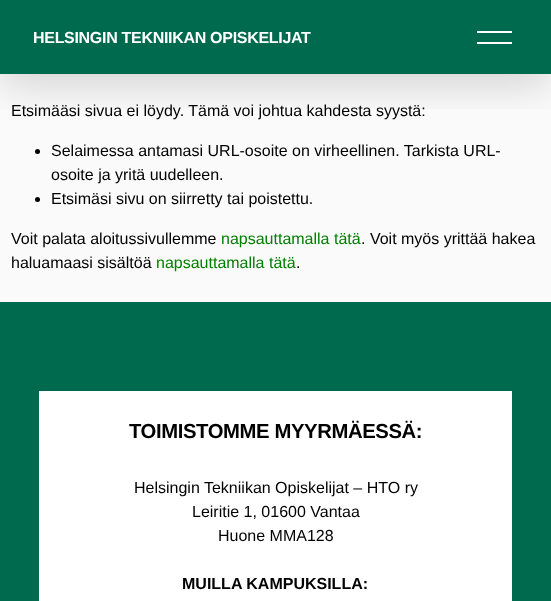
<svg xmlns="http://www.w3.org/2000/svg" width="551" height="601">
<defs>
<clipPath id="clip1"><rect x="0" y="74" width="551" height="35"/></clipPath>
</defs>
<rect width="100%" height="100%" fill="#fafafa"/>
<rect width="551" height="74" fill="#006a4e"/>
<circle cx="37.5" cy="151.5" r="2.5" fill="#000"/>
<g clip-path="url(#clip1)">
<rect y="12" width="551" height="74" fill="#00000026" filter="blur(21px)"/>
</g>
<text x="33" y="43" style="font-family:Liberation Sans;font-size:16px;font-weight:bold;letter-spacing:-0.3px;fill:#fff">HELSINGIN TEKNIIKAN OPISKELIJAT</text>
<rect x="477" y="31" width="35" height="2" fill="#fff"/>
<rect x="477" y="42" width="35" height="2" fill="#fff"/>
<text x="11" y="116" style="font-family:Liberation Sans;font-size:16px;fill:#000">Etsimääsi sivua ei löydy. Tämä voi johtua kahdesta syystä:</text>
<text x="51" y="156" style="font-family:Liberation Sans;font-size:16px;fill:#000">Selaimessa antamasi URL-osoite on virheellinen. Tarkista URL-</text>
<text x="51" y="180" style="font-family:Liberation Sans;font-size:16px;fill:#000">osoite ja yritä uudelleen.</text>
<circle cx="37.5" cy="199.5" r="2.5" fill="#000"/>
<text x="51" y="204" style="font-family:Liberation Sans;font-size:16px;fill:#000">Etsimäsi sivu on siirretty tai poistettu.</text>
<text x="11" y="244" style="font-family:Liberation Sans;font-size:16px;fill:#000">Voit palata aloitussivullemme</text>
<text x="221" y="244" style="font-family:Liberation Sans;font-size:16px;fill:#008000">napsauttamalla tätä</text>
<text x="361" y="244" style="font-family:Liberation Sans;font-size:16px;fill:#000">. Voit myös yrittää hakea</text>
<text x="11" y="268" style="font-family:Liberation Sans;font-size:16px;fill:#000">haluamaasi sisältöä</text>
<text x="156" y="268" style="font-family:Liberation Sans;font-size:16px;fill:#008000">napsauttamalla tätä</text>
<text x="296" y="268" style="font-family:Liberation Sans;font-size:16px;fill:#000">.</text>
<rect y="302" width="551" height="299" fill="#006a4e"/>
<rect x="39" y="391" width="473" height="210" fill="#fff"/>
<text x="129" y="438" style="font-family:Liberation Sans;font-size:20.3px;font-weight:bold;letter-spacing:-0.4px;fill:#000">TOIMISTOMME MYYRMÄESSÄ:</text>
<text x="134" y="493" style="font-family:Liberation Sans;font-size:16px;fill:#000">Helsingin Tekniikan Opiskelijat – HTO ry</text>
<text x="192" y="517" style="font-family:Liberation Sans;font-size:16px;fill:#000">Leiritie 1, 01600 Vantaa</text>
<text x="218" y="541" style="font-family:Liberation Sans;font-size:16px;fill:#000">Huone MMA128</text>
<text x="182" y="589" style="font-family:Liberation Sans;font-size:16px;font-weight:bold;fill:#000">MUILLA KAMPUKSILLA:</text>
</svg>
